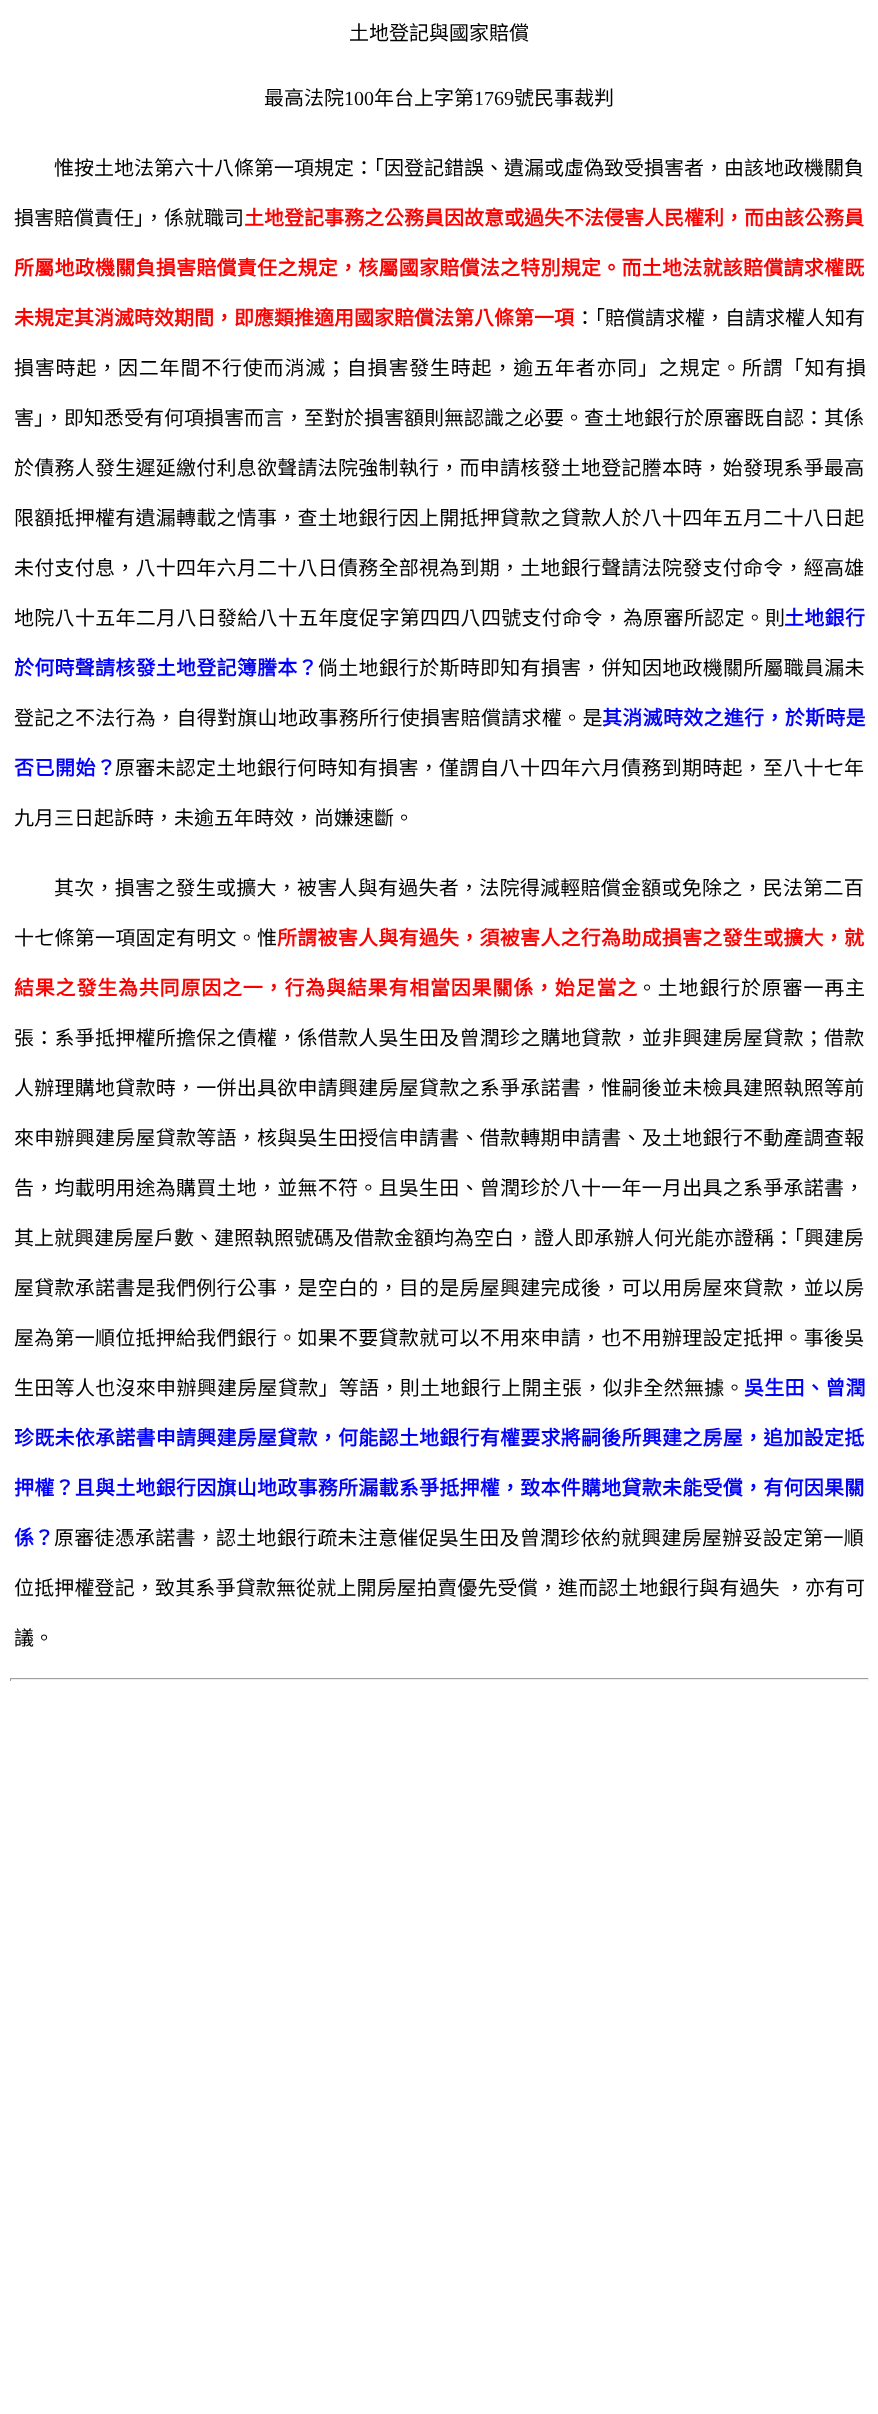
<svg xmlns="http://www.w3.org/2000/svg" width="878" height="2414">
<rect width="100%" height="100%" fill="#fff"/>
<text x="349" y="40" style="font-family:Noto Sans CJK TC;font-size:20px;fill:#000">土地登記與國家賠償</text>
<text x="264" y="105" style="font-family:Noto Sans CJK TC;font-size:20px;fill:#000">最高法院</text>
<text x="344" y="105" style="font-family:Liberation Serif;font-size:20px;fill:#000">100</text>
<text x="374" y="105" style="font-family:Noto Sans CJK TC;font-size:20px;fill:#000">年台上字第</text>
<text x="474" y="105" style="font-family:Liberation Serif;font-size:20px;fill:#000">1769</text>
<text x="514" y="105" style="font-family:Noto Sans CJK TC;font-size:20px;fill:#000">號民事裁判</text>
<text x="54" y="175" style="font-family:Noto Sans CJK TC;font-size:20px;fill:#000">惟按土地法第六十八條第一項規定：「因登記錯誤、遺漏或虛偽致受損害者，由該地政機關負</text>
<text x="14" y="225" style="font-family:Noto Sans CJK TC;font-size:20px;fill:#000">損害賠償責任」，係就職司</text>
<text x="244" y="225" style="font-family:Noto Sans CJK TC;font-size:20px;font-weight:bold;fill:#f00">土地登記事務之公務員因故意或過失不法侵害人民權利，而由該公務員</text>
<text x="14" y="275" style="font-family:Noto Sans CJK TC;font-size:20px;font-weight:bold;letter-spacing:0.25px;fill:#f00">所屬地政機關負損害賠償責任之規定，核屬國家賠償法之特別規定。而土地法就該賠償請求權既</text>
<text x="14" y="325" style="font-family:Noto Sans CJK TC;font-size:20px;font-weight:bold;fill:#f00">未規定其消滅時效期間，即應類推適用國家賠償法第八條第一項</text>
<text x="575" y="325" style="font-family:Noto Sans CJK TC;font-size:20px;fill:#000">：「賠償請求權，自請求權人知有</text>
<text x="14" y="375" style="font-family:Noto Sans CJK TC;font-size:20px;letter-spacing:0.8px;fill:#000">損害時起，因二年間不行使而消滅；自損害發生時起，逾五年者亦同」之規定。所謂「知有損</text>
<text x="14" y="425" style="font-family:Noto Sans CJK TC;font-size:20px;fill:#000">害」，即知悉受有何項損害而言，至對於損害額則無認識之必要。查土地銀行於原審既自認：其係</text>
<text x="14" y="475" style="font-family:Noto Sans CJK TC;font-size:20px;letter-spacing:0.25px;fill:#000">於債務人發生遲延繳付利息欲聲請法院強制執行，而申請核發土地登記謄本時，始發現系爭最高</text>
<text x="14" y="525" style="font-family:Noto Sans CJK TC;font-size:20px;letter-spacing:0.25px;fill:#000">限額抵押權有遺漏轉載之情事，查土地銀行因上開抵押貸款之貸款人於八十四年五月二十八日起</text>
<text x="14" y="575" style="font-family:Noto Sans CJK TC;font-size:20px;letter-spacing:0.25px;fill:#000">未付支付息，八十四年六月二十八日債務全部視為到期，土地銀行聲請法院發支付命令，經高雄</text>
<text x="14" y="625" style="font-family:Noto Sans CJK TC;font-size:20px;letter-spacing:0.3px;fill:#000">地院八十五年二月八日發給八十五年度促字第四四八四號支付命令，為原審所認定。則</text>
<text x="784" y="625" style="font-family:Noto Sans CJK TC;font-size:20px;font-weight:bold;letter-spacing:0.3px;fill:#00f">土地銀行</text>
<text x="14" y="675" style="font-family:Noto Sans CJK TC;font-size:20px;font-weight:bold;letter-spacing:0.25px;fill:#00f">於何時聲請核發土地登記簿謄本？</text>
<text x="318" y="675" style="font-family:Noto Sans CJK TC;font-size:20px;letter-spacing:0.25px;fill:#000">倘土地銀行於斯時即知有損害，併知因地政機關所屬職員漏未</text>
<text x="14" y="725" style="font-family:Noto Sans CJK TC;font-size:20px;letter-spacing:0.3px;fill:#000">登記之不法行為，自得對旗山地政事務所行使損害賠償請求權。是</text>
<text x="602" y="725" style="font-family:Noto Sans CJK TC;font-size:20px;font-weight:bold;letter-spacing:0.3px;fill:#00f">其消滅時效之進行，於斯時是</text>
<text x="14" y="775" style="font-family:Noto Sans CJK TC;font-size:20px;font-weight:bold;letter-spacing:0.5px;fill:#00f">否已開始？</text>
<text x="115" y="775" style="font-family:Noto Sans CJK TC;font-size:20px;letter-spacing:0.25px;fill:#000">原審未認定土地銀行何時知有損害，僅謂自八十四年六月債務到期時起，至八十七年</text>
<text x="14" y="825" style="font-family:Noto Sans CJK TC;font-size:20px;fill:#000">九月三日起訴時，未逾五年時效，尚嫌速斷。</text>
<text x="54" y="895" style="font-family:Noto Sans CJK TC;font-size:20px;letter-spacing:0.25px;fill:#000">其次，損害之發生或擴大，被害人與有過失者，法院得減輕賠償金額或免除之，民法第二百</text>
<text x="14" y="945" style="font-family:Noto Sans CJK TC;font-size:20px;letter-spacing:0.25px;fill:#000">十七條第一項固定有明文。惟</text>
<text x="277" y="945" style="font-family:Noto Sans CJK TC;font-size:20px;font-weight:bold;letter-spacing:0.25px;fill:#f00">所謂被害人與有過失，須被害人之行為助成損害之發生或擴大，就</text>
<text x="14" y="995" style="font-family:Noto Sans CJK TC;font-size:20px;font-weight:bold;letter-spacing:0.8px;fill:#f00">結果之發生為共同原因之一，行為與結果有相當因果關係，始足當之</text>
<text x="637" y="995" style="font-family:Noto Sans CJK TC;font-size:20px;letter-spacing:0.8px;fill:#000">。土地銀行於原審一再主</text>
<text x="14" y="1045" style="font-family:Noto Sans CJK TC;font-size:20px;letter-spacing:0.25px;fill:#000">張：系爭抵押權所擔保之債權，係借款人吳生田及曾潤珍之購地貸款，並非興建房屋貸款；借款</text>
<text x="14" y="1095" style="font-family:Noto Sans CJK TC;font-size:20px;letter-spacing:0.25px;fill:#000">人辦理購地貸款時，一併出具欲申請興建房屋貸款之系爭承諾書，惟嗣後並未檢具建照執照等前</text>
<text x="14" y="1145" style="font-family:Noto Sans CJK TC;font-size:20px;letter-spacing:0.25px;fill:#000">來申辦興建房屋貸款等語，核與吳生田授信申請書、借款轉期申請書、及土地銀行不動產調查報</text>
<text x="14" y="1195" style="font-family:Noto Sans CJK TC;font-size:20px;letter-spacing:0.25px;fill:#000">告，均載明用途為購買土地，並無不符。且吳生田、曾潤珍於八十一年一月出具之系爭承諾書，</text>
<text x="14" y="1245" style="font-family:Noto Sans CJK TC;font-size:20px;fill:#000">其上就興建房屋戶數、建照執照號碼及借款金額均為空白，證人即承辦人何光能亦證稱：「興建房</text>
<text x="14" y="1295" style="font-family:Noto Sans CJK TC;font-size:20px;letter-spacing:0.25px;fill:#000">屋貸款承諾書是我們例行公事，是空白的，目的是房屋興建完成後，可以用房屋來貸款，並以房</text>
<text x="14" y="1345" style="font-family:Noto Sans CJK TC;font-size:20px;letter-spacing:0.25px;fill:#000">屋為第一順位抵押給我們銀行。如果不要貸款就可以不用來申請，也不用辦理設定抵押。事後吳</text>
<text x="14" y="1395" style="font-family:Noto Sans CJK TC;font-size:20px;letter-spacing:0.3px;fill:#000">生田等人也沒來申辦興建房屋貸款」等語，則土地銀行上開主張，似非全然無據。</text>
<text x="744" y="1395" style="font-family:Noto Sans CJK TC;font-size:20px;font-weight:bold;letter-spacing:0.3px;fill:#00f">吳生田、曾潤</text>
<text x="14" y="1445" style="font-family:Noto Sans CJK TC;font-size:20px;font-weight:bold;letter-spacing:0.25px;fill:#00f">珍既未依承諾書申請興建房屋貸款，何能認土地銀行有權要求將嗣後所興建之房屋，追加設定抵</text>
<text x="14" y="1495" style="font-family:Noto Sans CJK TC;font-size:20px;font-weight:bold;letter-spacing:0.25px;fill:#00f">押權？且與土地銀行因旗山地政事務所漏載系爭抵押權，致本件購地貸款未能受償，有何因果關</text>
<text x="14" y="1545" style="font-family:Noto Sans CJK TC;font-size:20px;font-weight:bold;fill:#00f">係？</text>
<text x="54" y="1545" style="font-family:Noto Sans CJK TC;font-size:20px;letter-spacing:0.25px;fill:#000">原審徒憑承諾書，認土地銀行疏未注意催促吳生田及曾潤珍依約就興建房屋辦妥設定第一順</text>
<text x="14" y="1595" style="font-family:Noto Sans CJK TC;font-size:20px;letter-spacing:0.15px;fill:#000">位抵押權登記，致其系爭貸款無從就上開房屋拍賣優先受償，進而認土地銀行與有過失</text>
<text x="785" y="1595" style="font-family:Noto Sans CJK TC;font-size:20px;fill:#000">，亦有可</text>
<text x="14" y="1645" style="font-family:Noto Sans CJK TC;font-size:20px;fill:#000">議。</text>
<rect x="10" y="1678" width="859" height="1" fill="#9f9f9f"/>
<rect x="868" y="1678" width="1" height="3" fill="#eee"/>
<rect x="10" y="1679" width="859" height="1" fill="#eee"/>
<rect x="10" y="1678" width="1" height="3" fill="#9f9f9f"/>
</svg>
